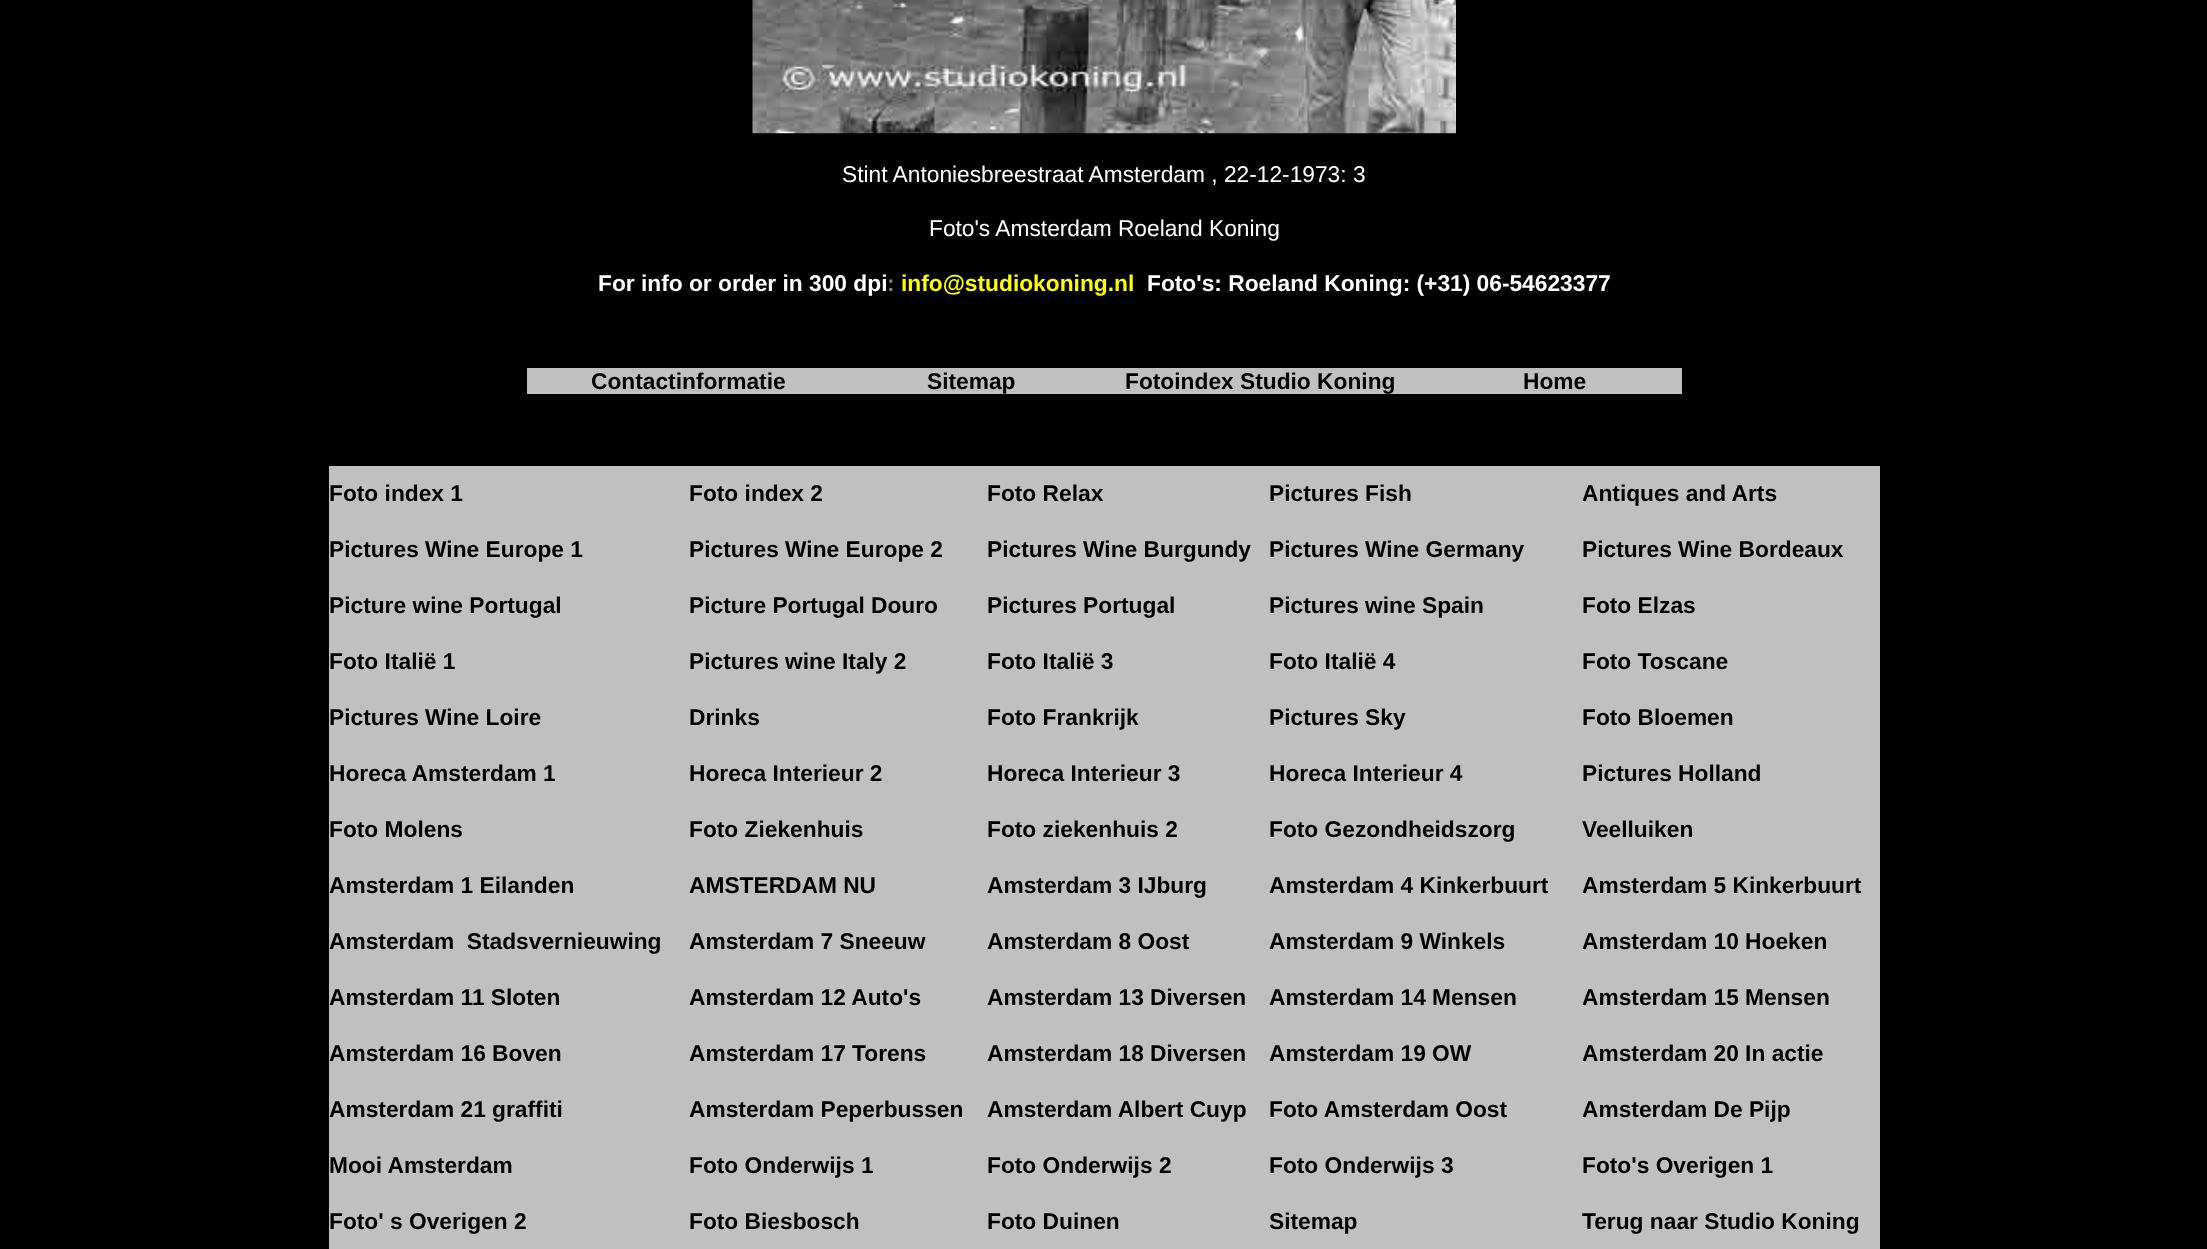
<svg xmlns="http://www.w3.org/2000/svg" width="2207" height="1249">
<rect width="100%" height="100%" fill="#000"/>
<image x="752" y="0" width="704" height="134" href="media/1.png"/>
<text x="842" y="182" style="font-family:Liberation Sans;font-size:22.75px;fill:#fff">Stint Antoniesbreestraat Amsterdam , 22-12-1973: 3</text>
<text x="929" y="236" style="font-family:Liberation Sans;font-size:22.75px;fill:#fff">Foto's Amsterdam Roeland Koning</text>
<text x="598" y="291" style="font-family:Liberation Sans;font-size:22.75px;font-weight:bold;fill:#fff">For info or order in 300 dpi</text>
<text x="887" y="291" style="font-family:Liberation Sans;font-size:22.75px;font-weight:bold;fill:#808080">:</text>
<text x="901" y="291" style="font-family:Liberation Sans;font-size:22.75px;font-weight:bold;fill:#ff0">info@studiokoning.nl</text>
<text x="1147" y="291" style="font-family:Liberation Sans;font-size:22.75px;font-weight:bold;fill:#fff">Foto's: Roeland Koning: (+31) 06-54623377</text>
<rect x="527" y="368" width="1155" height="26" fill="#c0c0c0"/>
<text x="591" y="389" style="font-family:Liberation Sans;font-size:22.75px;font-weight:bold;fill:#000">Contactinformatie</text>
<text x="927" y="389" style="font-family:Liberation Sans;font-size:22.75px;font-weight:bold;fill:#000">Sitemap</text>
<text x="1125" y="389" style="font-family:Liberation Sans;font-size:22.75px;font-weight:bold;fill:#000">Fotoindex Studio Koning</text>
<text x="1523" y="389" style="font-family:Liberation Sans;font-size:22.75px;font-weight:bold;fill:#000">Home</text>
<rect x="329" y="466" width="1551" height="56" fill="#c0c0c0"/>
<text x="329" y="501" style="font-family:Liberation Sans;font-size:22.75px;font-weight:bold;fill:#000">Foto index 1</text>
<text x="689" y="501" style="font-family:Liberation Sans;font-size:22.75px;font-weight:bold;fill:#000">Foto index 2</text>
<text x="987" y="501" style="font-family:Liberation Sans;font-size:22.75px;font-weight:bold;fill:#000">Foto Relax</text>
<text x="1269" y="501" style="font-family:Liberation Sans;font-size:22.75px;font-weight:bold;fill:#000">Pictures Fish</text>
<text x="1582" y="501" style="font-family:Liberation Sans;font-size:22.75px;font-weight:bold;fill:#000">Antiques and Arts</text>
<rect x="329" y="522" width="1551" height="56" fill="#c0c0c0"/>
<text x="329" y="557" style="font-family:Liberation Sans;font-size:22.75px;font-weight:bold;fill:#000">Pictures Wine Europe 1</text>
<text x="689" y="557" style="font-family:Liberation Sans;font-size:22.75px;font-weight:bold;fill:#000">Pictures Wine Europe 2</text>
<text x="987" y="557" style="font-family:Liberation Sans;font-size:22.75px;font-weight:bold;fill:#000">Pictures Wine Burgundy</text>
<text x="1269" y="557" style="font-family:Liberation Sans;font-size:22.75px;font-weight:bold;fill:#000">Pictures Wine Germany</text>
<text x="1582" y="557" style="font-family:Liberation Sans;font-size:22.75px;font-weight:bold;fill:#000">Pictures Wine Bordeaux</text>
<rect x="329" y="578" width="1551" height="56" fill="#c0c0c0"/>
<text x="329" y="613" style="font-family:Liberation Sans;font-size:22.75px;font-weight:bold;fill:#000">Picture wine Portugal</text>
<text x="689" y="613" style="font-family:Liberation Sans;font-size:22.75px;font-weight:bold;fill:#000">Picture Portugal Douro</text>
<text x="987" y="613" style="font-family:Liberation Sans;font-size:22.75px;font-weight:bold;fill:#000">Pictures Portugal</text>
<text x="1269" y="613" style="font-family:Liberation Sans;font-size:22.75px;font-weight:bold;fill:#000">Pictures wine Spain</text>
<text x="1582" y="613" style="font-family:Liberation Sans;font-size:22.75px;font-weight:bold;fill:#000">Foto Elzas</text>
<rect x="329" y="634" width="1551" height="56" fill="#c0c0c0"/>
<text x="329" y="669" style="font-family:Liberation Sans;font-size:22.75px;font-weight:bold;fill:#000">Foto Italië 1</text>
<text x="689" y="669" style="font-family:Liberation Sans;font-size:22.75px;font-weight:bold;fill:#000">Pictures wine Italy 2</text>
<text x="987" y="669" style="font-family:Liberation Sans;font-size:22.75px;font-weight:bold;fill:#000">Foto Italië 3</text>
<text x="1269" y="669" style="font-family:Liberation Sans;font-size:22.75px;font-weight:bold;fill:#000">Foto Italië 4</text>
<text x="1582" y="669" style="font-family:Liberation Sans;font-size:22.75px;font-weight:bold;fill:#000">Foto Toscane</text>
<rect x="329" y="690" width="1551" height="56" fill="#c0c0c0"/>
<text x="329" y="725" style="font-family:Liberation Sans;font-size:22.75px;font-weight:bold;fill:#000">Pictures Wine Loire</text>
<text x="689" y="725" style="font-family:Liberation Sans;font-size:22.75px;font-weight:bold;fill:#000">Drinks</text>
<text x="987" y="725" style="font-family:Liberation Sans;font-size:22.75px;font-weight:bold;fill:#000">Foto Frankrijk</text>
<text x="1269" y="725" style="font-family:Liberation Sans;font-size:22.75px;font-weight:bold;fill:#000">Pictures Sky</text>
<text x="1582" y="725" style="font-family:Liberation Sans;font-size:22.75px;font-weight:bold;fill:#000">Foto Bloemen</text>
<rect x="329" y="746" width="1551" height="56" fill="#c0c0c0"/>
<text x="329" y="781" style="font-family:Liberation Sans;font-size:22.75px;font-weight:bold;fill:#000">Horeca Amsterdam 1</text>
<text x="689" y="781" style="font-family:Liberation Sans;font-size:22.75px;font-weight:bold;fill:#000">Horeca Interieur 2</text>
<text x="987" y="781" style="font-family:Liberation Sans;font-size:22.75px;font-weight:bold;fill:#000">Horeca Interieur 3</text>
<text x="1269" y="781" style="font-family:Liberation Sans;font-size:22.75px;font-weight:bold;fill:#000">Horeca Interieur 4</text>
<text x="1582" y="781" style="font-family:Liberation Sans;font-size:22.75px;font-weight:bold;fill:#000">Pictures Holland</text>
<rect x="329" y="802" width="1551" height="56" fill="#c0c0c0"/>
<text x="329" y="837" style="font-family:Liberation Sans;font-size:22.75px;font-weight:bold;fill:#000">Foto Molens</text>
<text x="689" y="837" style="font-family:Liberation Sans;font-size:22.75px;font-weight:bold;fill:#000">Foto Ziekenhuis</text>
<text x="987" y="837" style="font-family:Liberation Sans;font-size:22.75px;font-weight:bold;fill:#000">Foto ziekenhuis 2</text>
<text x="1269" y="837" style="font-family:Liberation Sans;font-size:22.75px;font-weight:bold;fill:#000">Foto Gezondheidszorg</text>
<text x="1582" y="837" style="font-family:Liberation Sans;font-size:22.75px;font-weight:bold;fill:#000">Veelluiken</text>
<rect x="329" y="858" width="1551" height="56" fill="#c0c0c0"/>
<text x="329" y="893" style="font-family:Liberation Sans;font-size:22.75px;font-weight:bold;fill:#000">Amsterdam 1 Eilanden</text>
<text x="689" y="893" style="font-family:Liberation Sans;font-size:22.75px;font-weight:bold;fill:#000">AMSTERDAM NU</text>
<text x="987" y="893" style="font-family:Liberation Sans;font-size:22.75px;font-weight:bold;fill:#000">Amsterdam 3 IJburg</text>
<text x="1269" y="893" style="font-family:Liberation Sans;font-size:22.75px;font-weight:bold;fill:#000">Amsterdam 4 Kinkerbuurt</text>
<text x="1582" y="893" style="font-family:Liberation Sans;font-size:22.75px;font-weight:bold;fill:#000">Amsterdam 5 Kinkerbuurt</text>
<rect x="329" y="914" width="1551" height="56" fill="#c0c0c0"/>
<text x="329" y="949" style="font-family:Liberation Sans;font-size:22.75px;font-weight:bold;fill:#000" xml:space="preserve">Amsterdam  Stadsvernieuwing</text>
<text x="689" y="949" style="font-family:Liberation Sans;font-size:22.75px;font-weight:bold;fill:#000">Amsterdam 7 Sneeuw</text>
<text x="987" y="949" style="font-family:Liberation Sans;font-size:22.75px;font-weight:bold;fill:#000">Amsterdam 8 Oost</text>
<text x="1269" y="949" style="font-family:Liberation Sans;font-size:22.75px;font-weight:bold;fill:#000">Amsterdam 9 Winkels</text>
<text x="1582" y="949" style="font-family:Liberation Sans;font-size:22.75px;font-weight:bold;fill:#000">Amsterdam 10 Hoeken</text>
<rect x="329" y="970" width="1551" height="56" fill="#c0c0c0"/>
<text x="329" y="1005" style="font-family:Liberation Sans;font-size:22.75px;font-weight:bold;fill:#000">Amsterdam 11 Sloten</text>
<text x="689" y="1005" style="font-family:Liberation Sans;font-size:22.75px;font-weight:bold;fill:#000">Amsterdam 12 Auto's</text>
<text x="987" y="1005" style="font-family:Liberation Sans;font-size:22.75px;font-weight:bold;fill:#000">Amsterdam 13 Diversen</text>
<text x="1269" y="1005" style="font-family:Liberation Sans;font-size:22.75px;font-weight:bold;fill:#000">Amsterdam 14 Mensen</text>
<text x="1582" y="1005" style="font-family:Liberation Sans;font-size:22.75px;font-weight:bold;fill:#000">Amsterdam 15 Mensen</text>
<rect x="329" y="1026" width="1551" height="56" fill="#c0c0c0"/>
<text x="329" y="1061" style="font-family:Liberation Sans;font-size:22.75px;font-weight:bold;fill:#000">Amsterdam 16 Boven</text>
<text x="689" y="1061" style="font-family:Liberation Sans;font-size:22.75px;font-weight:bold;fill:#000">Amsterdam 17 Torens</text>
<text x="987" y="1061" style="font-family:Liberation Sans;font-size:22.75px;font-weight:bold;fill:#000">Amsterdam 18 Diversen</text>
<text x="1269" y="1061" style="font-family:Liberation Sans;font-size:22.75px;font-weight:bold;fill:#000">Amsterdam 19 OW</text>
<text x="1582" y="1061" style="font-family:Liberation Sans;font-size:22.75px;font-weight:bold;fill:#000">Amsterdam 20 In actie</text>
<rect x="329" y="1082" width="1551" height="56" fill="#c0c0c0"/>
<text x="329" y="1117" style="font-family:Liberation Sans;font-size:22.75px;font-weight:bold;fill:#000">Amsterdam 21 graffiti</text>
<text x="689" y="1117" style="font-family:Liberation Sans;font-size:22.75px;font-weight:bold;fill:#000">Amsterdam Peperbussen</text>
<text x="987" y="1117" style="font-family:Liberation Sans;font-size:22.75px;font-weight:bold;fill:#000">Amsterdam Albert Cuyp</text>
<text x="1269" y="1117" style="font-family:Liberation Sans;font-size:22.75px;font-weight:bold;fill:#000">Foto Amsterdam Oost</text>
<text x="1582" y="1117" style="font-family:Liberation Sans;font-size:22.75px;font-weight:bold;fill:#000">Amsterdam De Pijp</text>
<rect x="329" y="1138" width="1551" height="56" fill="#c0c0c0"/>
<text x="329" y="1173" style="font-family:Liberation Sans;font-size:22.75px;font-weight:bold;fill:#000">Mooi Amsterdam</text>
<text x="689" y="1173" style="font-family:Liberation Sans;font-size:22.75px;font-weight:bold;fill:#000">Foto Onderwijs 1</text>
<text x="987" y="1173" style="font-family:Liberation Sans;font-size:22.75px;font-weight:bold;fill:#000">Foto Onderwijs 2</text>
<text x="1269" y="1173" style="font-family:Liberation Sans;font-size:22.75px;font-weight:bold;fill:#000">Foto Onderwijs 3</text>
<text x="1582" y="1173" style="font-family:Liberation Sans;font-size:22.75px;font-weight:bold;fill:#000">Foto's Overigen 1</text>
<rect x="329" y="1194" width="1551" height="55" fill="#c0c0c0"/>
<text x="329" y="1229" style="font-family:Liberation Sans;font-size:22.75px;font-weight:bold;fill:#000">Foto' s Overigen 2</text>
<text x="689" y="1229" style="font-family:Liberation Sans;font-size:22.75px;font-weight:bold;fill:#000">Foto Biesbosch</text>
<text x="987" y="1229" style="font-family:Liberation Sans;font-size:22.75px;font-weight:bold;fill:#000">Foto Duinen</text>
<text x="1269" y="1229" style="font-family:Liberation Sans;font-size:22.75px;font-weight:bold;fill:#000">Sitemap</text>
<text x="1582" y="1229" style="font-family:Liberation Sans;font-size:22.75px;font-weight:bold;fill:#000">Terug naar Studio Koning</text>
</svg>
